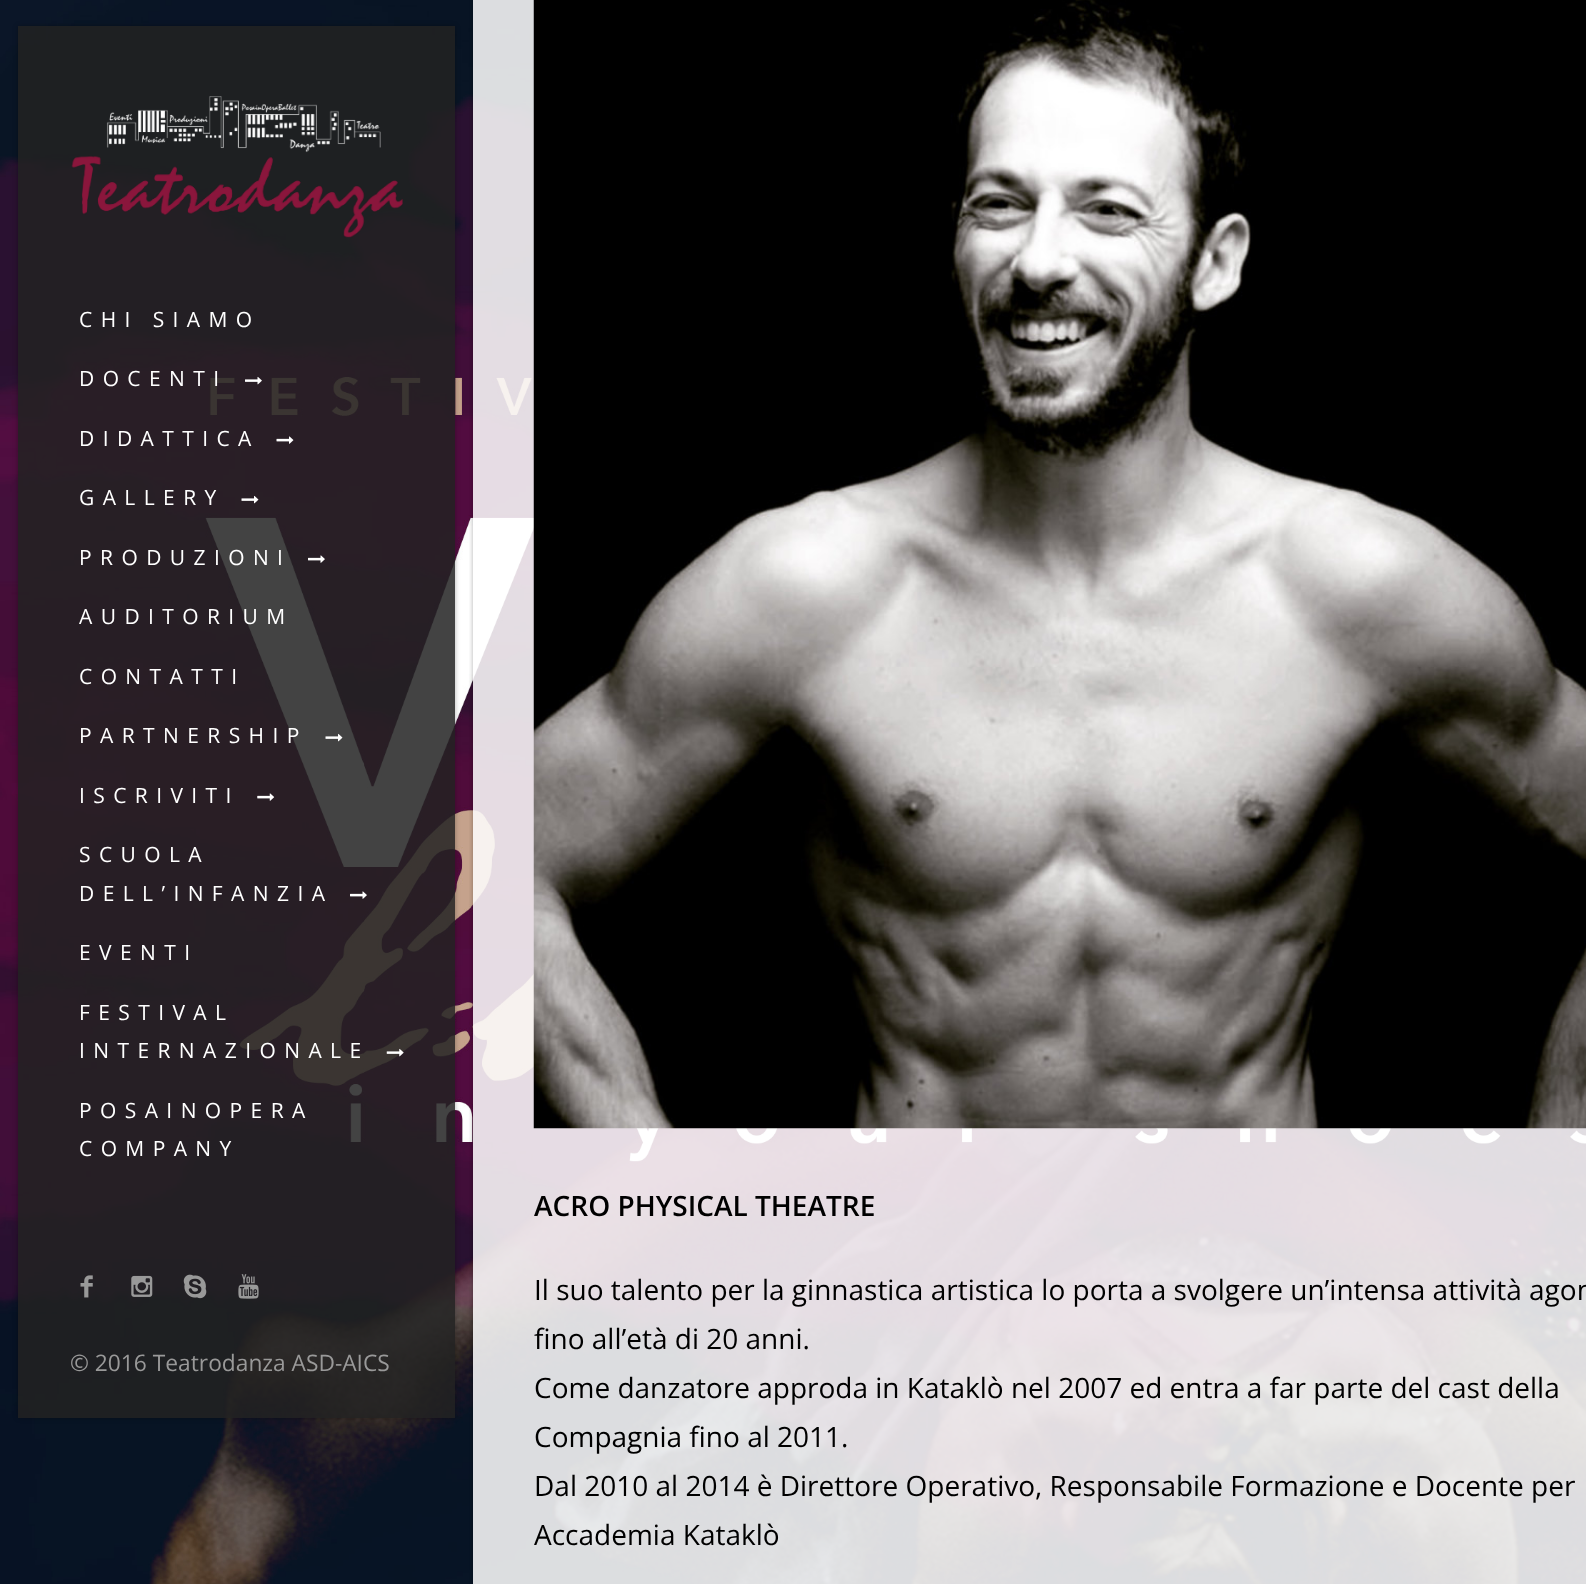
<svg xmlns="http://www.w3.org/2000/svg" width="1586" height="1584">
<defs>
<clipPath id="clip1"><path d="M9 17h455v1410h-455zm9 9h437v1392h-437z" clip-rule="evenodd"/></clipPath>
<clipPath id="clip2"><rect x="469" y="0" width="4" height="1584"/></clipPath>
</defs>
<rect width="100%" height="100%" fill="#fff"/>
<image x="0" y="0" width="1586" height="1584" href="media/1.png"/>
<g clip-path="url(#clip1)">
<rect x="18" y="26" width="437" height="1392" fill="#0000004d" filter="blur(2.5px)"/>
</g>
<rect x="18" y="26" width="437" height="1392" fill="#222222d9"/>
<image x="71" y="96" width="332" height="142" href="media/2.png"/>
<text x="79" y="327" style="font-family:Open Sans;font-size:21px;letter-spacing:8.4px;fill:#fff">CHI SIAMO</text>
<text x="79" y="386" style="font-family:Open Sans;font-size:21px;letter-spacing:8.4px;fill:#fff">DOCENTI</text>
<image x="245" y="376" width="17" height="9" href="media/3.png"/>
<text x="79" y="446" style="font-family:Open Sans;font-size:21px;letter-spacing:8.4px;fill:#fff">DIDATTICA</text>
<image x="276" y="436" width="18" height="8" href="media/4.png"/>
<text x="79" y="505" style="font-family:Open Sans;font-size:21px;letter-spacing:8.4px;fill:#fff">GALLERY</text>
<image x="241" y="495" width="18" height="9" href="media/5.png"/>
<text x="79" y="565" style="font-family:Open Sans;font-size:21px;letter-spacing:8.4px;fill:#fff">PRODUZIONI</text>
<image x="308" y="555" width="17" height="8" href="media/6.png"/>
<text x="79" y="624" style="font-family:Open Sans;font-size:21px;letter-spacing:8.4px;fill:#fff">AUDITORIUM</text>
<text x="79" y="684" style="font-family:Open Sans;font-size:21px;letter-spacing:8.4px;fill:#fff">CONTATTI</text>
<text x="79" y="743" style="font-family:Open Sans;font-size:21px;letter-spacing:8.4px;fill:#fff">PARTNERSHIP</text>
<image x="325" y="733" width="18" height="9" href="media/7.png"/>
<text x="79" y="803" style="font-family:Open Sans;font-size:21px;letter-spacing:8.4px;fill:#fff">ISCRIVITI</text>
<image x="257" y="793" width="18" height="8" href="media/8.png"/>
<text x="79" y="862" style="font-family:Open Sans;font-size:21px;letter-spacing:8.4px;fill:#fff">SCUOLA</text>
<text x="79" y="901" style="font-family:Open Sans;font-size:21px;letter-spacing:8.4px;fill:#fff">DELL’INFANZIA</text>
<image x="350" y="891" width="17" height="8" href="media/9.png"/>
<text x="79" y="960" style="font-family:Open Sans;font-size:21px;letter-spacing:8.4px;fill:#fff">EVENTI</text>
<text x="79" y="1020" style="font-family:Open Sans;font-size:21px;letter-spacing:8.4px;fill:#fff">FESTIVAL</text>
<text x="79" y="1058" style="font-family:Open Sans;font-size:21px;letter-spacing:8.4px;fill:#fff">INTERNAZIONALE</text>
<image x="386" y="1048" width="18" height="9" href="media/10.png"/>
<text x="79" y="1118" style="font-family:Open Sans;font-size:21px;letter-spacing:8.4px;fill:#fff">POSAINOPERA</text>
<text x="79" y="1156" style="font-family:Open Sans;font-size:21px;letter-spacing:8.4px;fill:#fff">COMPANY</text>
<image x="80" y="1275" width="13" height="23" href="media/11.png"/>
<image x="131" y="1275" width="22" height="22" href="media/12.png"/>
<image x="183" y="1274" width="24" height="25" href="media/13.png"/>
<image x="238" y="1274" width="21" height="25" href="media/14.png"/>
<text x="70" y="1371" style="font-family:Open Sans;font-size:22.75px;fill:#999">© 2016 Teatrodanza ASD-AICS</text>
<g clip-path="url(#clip2)">
<rect x="473" y="-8" width="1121" height="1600" fill="#0000004d" filter="blur(2.5px)"/>
</g>
<rect x="473" width="1113" height="1584" fill="#ffffffdb"/>
<image x="533" y="0" width="1053" height="1129" href="media/15.png"/>
<text x="534" y="1216" style="font-family:Open Sans;font-size:28px;font-weight:600;fill:#000">ACRO PHYSICAL THEATRE</text>
<text x="534" y="1300" style="font-family:Open Sans;font-size:28px;fill:#000">Il suo talento per la ginnastica artistica lo porta a svolgere un’intensa attività agon</text>
<text x="534" y="1349" style="font-family:Open Sans;font-size:28px;fill:#000">fino all’età di 20 anni.</text>
<text x="534" y="1398" style="font-family:Open Sans;font-size:28px;fill:#000">Come danzatore approda in Kataklò nel 2007 ed entra a far parte del cast della</text>
<text x="534" y="1447" style="font-family:Open Sans;font-size:28px;fill:#000">Compagnia fino al 2011.</text>
<text x="534" y="1496" style="font-family:Open Sans;font-size:28px;fill:#000">Dal 2010 al 2014 è Direttore Operativo, Responsabile Formazione e Docente per</text>
<text x="534" y="1545" style="font-family:Open Sans;font-size:28px;fill:#000">Accademia Kataklò</text>
</svg>
